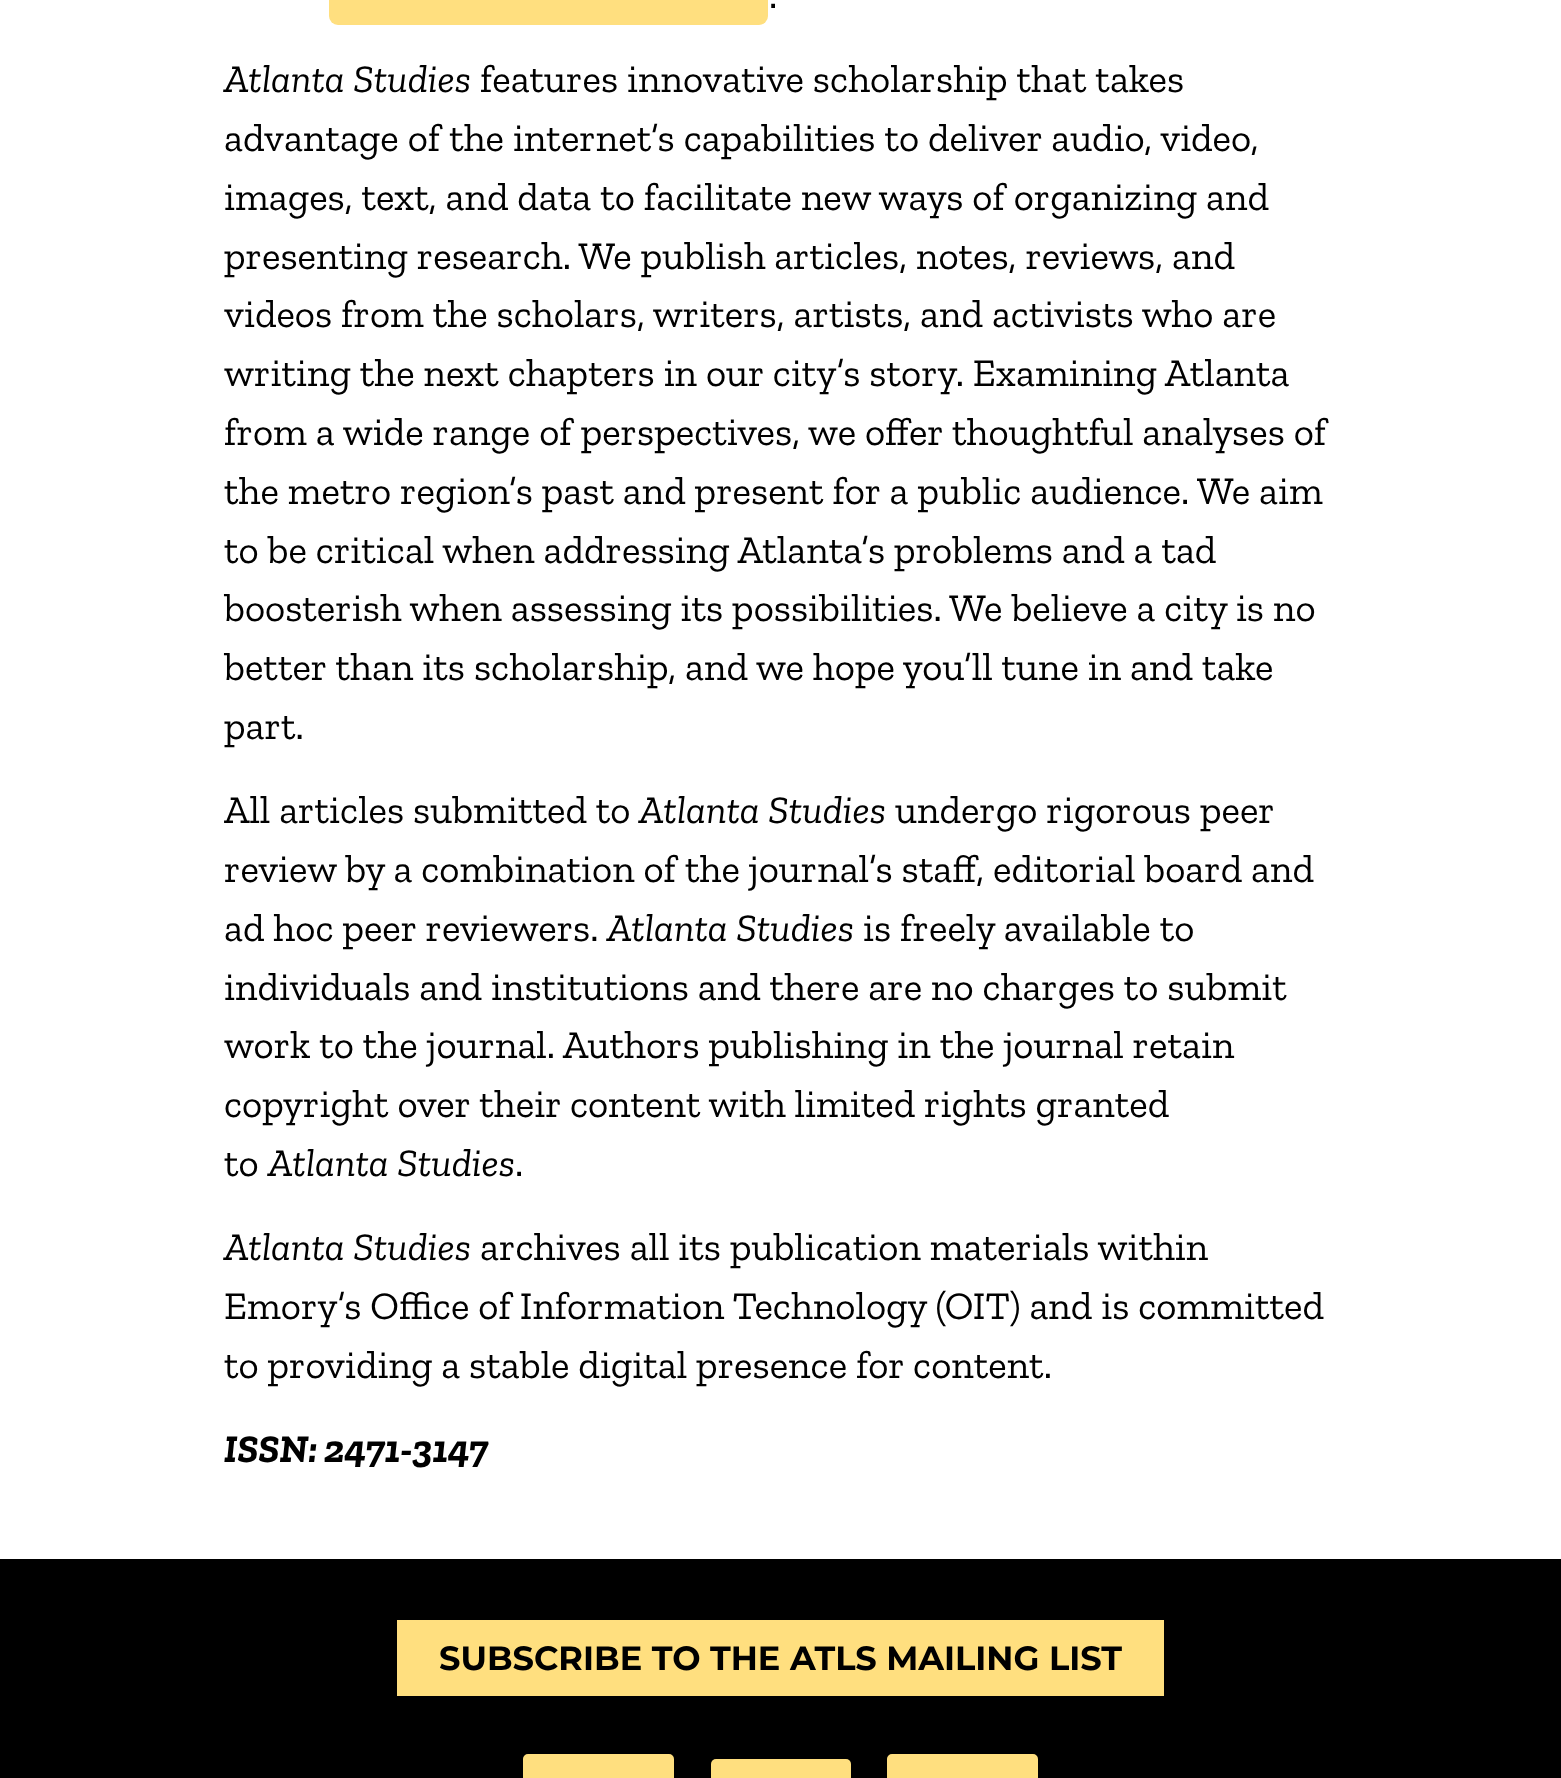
<svg xmlns="http://www.w3.org/2000/svg" width="1561" height="1778">
<rect width="100%" height="100%" fill="#fff"/>
<rect x="329" y="-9" width="439" height="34" rx="9" fill="#ffdf7f"/>
<text x="769" y="8" style="font-family:Zilla Slab;font-size:39.2px;fill:#000">.</text>
<text x="224" y="92" style="font-family:Zilla Slab;font-size:39.2px;font-style:italic;fill:#000">Atlanta Studies</text>
<text x="480" y="92" style="font-family:Zilla Slab;font-size:39.2px;fill:#000">features innovative scholarship that takes</text>
<text x="224" y="151" style="font-family:Zilla Slab;font-size:39.2px;fill:#000">advantage of the internet’s capabilities to deliver audio, video,</text>
<text x="224" y="210" style="font-family:Zilla Slab;font-size:39.2px;fill:#000">images, text, and data to facilitate new ways of organizing and</text>
<text x="224" y="269" style="font-family:Zilla Slab;font-size:39.2px;fill:#000">presenting research. We publish articles, notes, reviews, and</text>
<text x="224" y="327" style="font-family:Zilla Slab;font-size:39.2px;fill:#000">videos from the scholars, writers, artists, and activists who are</text>
<text x="224" y="386" style="font-family:Zilla Slab;font-size:39.2px;fill:#000">writing the next chapters in our city’s story. Examining Atlanta</text>
<text x="224" y="445" style="font-family:Zilla Slab;font-size:39.2px;fill:#000">from a wide range of perspectives, we offer thoughtful analyses of</text>
<text x="224" y="504" style="font-family:Zilla Slab;font-size:39.2px;fill:#000">the metro region’s past and present for a public audience. We aim</text>
<text x="224" y="563" style="font-family:Zilla Slab;font-size:39.2px;fill:#000">to be critical when addressing Atlanta’s problems and a tad</text>
<text x="224" y="621" style="font-family:Zilla Slab;font-size:39.2px;fill:#000">boosterish when assessing its possibilities. We believe a city is no</text>
<text x="224" y="680" style="font-family:Zilla Slab;font-size:39.2px;fill:#000">better than its scholarship, and we hope you’ll tune in and take</text>
<text x="224" y="739" style="font-family:Zilla Slab;font-size:39.2px;fill:#000">part.</text>
<text x="224" y="823" style="font-family:Zilla Slab;font-size:39.2px;fill:#000">All articles submitted to</text>
<text x="639" y="823" style="font-family:Zilla Slab;font-size:39.2px;font-style:italic;fill:#000">Atlanta Studies</text>
<text x="895" y="823" style="font-family:Zilla Slab;font-size:39.2px;fill:#000">undergo rigorous peer</text>
<text x="224" y="882" style="font-family:Zilla Slab;font-size:39.2px;fill:#000">review by a combination of the journal’s staff, editorial board and</text>
<text x="224" y="941" style="font-family:Zilla Slab;font-size:39.2px;fill:#000">ad hoc peer reviewers.</text>
<text x="607" y="941" style="font-family:Zilla Slab;font-size:39.2px;font-style:italic;fill:#000">Atlanta Studies</text>
<text x="863" y="941" style="font-family:Zilla Slab;font-size:39.2px;fill:#000">is freely available to</text>
<text x="224" y="1000" style="font-family:Zilla Slab;font-size:39.2px;fill:#000">individuals and institutions and there are no charges to submit</text>
<text x="224" y="1058" style="font-family:Zilla Slab;font-size:39.2px;fill:#000">work to the journal. Authors publishing in the journal retain</text>
<text x="224" y="1117" style="font-family:Zilla Slab;font-size:39.2px;fill:#000">copyright over their content with limited rights granted</text>
<text x="224" y="1176" style="font-family:Zilla Slab;font-size:39.2px;fill:#000">to</text>
<text x="268" y="1176" style="font-family:Zilla Slab;font-size:39.2px;font-style:italic;fill:#000">Atlanta Studies</text>
<text x="515" y="1176" style="font-family:Zilla Slab;font-size:39.2px;fill:#000">.</text>
<text x="224" y="1260" style="font-family:Zilla Slab;font-size:39.2px;font-style:italic;fill:#000">Atlanta Studies</text>
<text x="480" y="1260" style="font-family:Zilla Slab;font-size:39.2px;fill:#000">archives all its publication materials within</text>
<text x="224" y="1319" style="font-family:Zilla Slab;font-size:39.2px;fill:#000">Emory’s Office of Information Technology (OIT) and is committed</text>
<text x="224" y="1378" style="font-family:Zilla Slab;font-size:39.2px;fill:#000">to providing a stable digital presence for content.</text>
<text x="224" y="1462" style="font-family:Zilla Slab;font-size:39.2px;font-weight:bold;font-style:italic;fill:#000">ISSN: 2471-3147</text>
<rect y="1559" width="1561" height="219" fill="#000"/>
<rect x="394.5" y="1617.5" width="772" height="81" rx="2.5" fill="#ffdf7f" stroke="#000" stroke-width="5"/>
<text x="439" y="1670" style="font-family:Montserrat;font-size:33.6px;font-weight:bold;fill:#000">SUBSCRIBE TO THE ATLS MAILING LIST</text>
<rect x="525.5" y="1756.5" width="146" height="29" rx="2.5" fill="#ffdf7f" stroke="#ffdf7f" stroke-width="5"/>
<rect x="711" y="1759" width="140" height="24" rx="5" fill="#ffdf7f"/>
<rect x="889.5" y="1756.5" width="146" height="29" rx="2.5" fill="#ffdf7f" stroke="#ffdf7f" stroke-width="5"/>
</svg>
